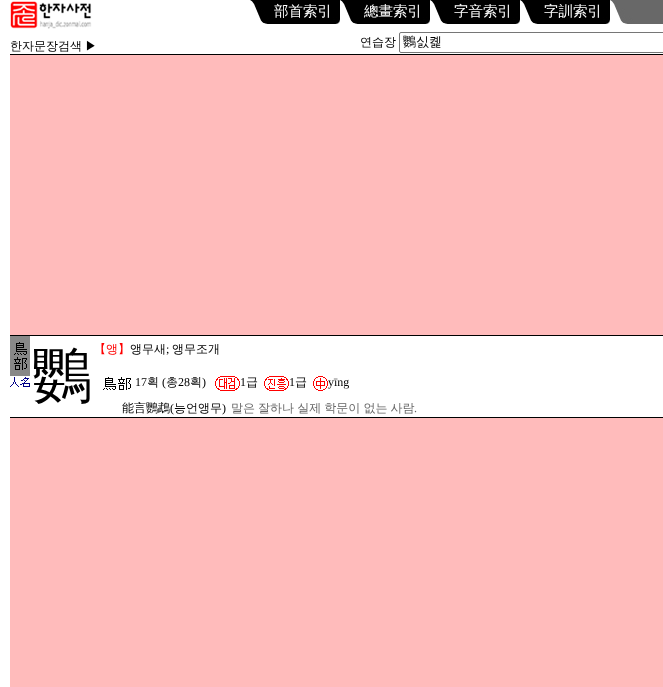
<svg xmlns="http://www.w3.org/2000/svg" width="663" height="687">
<rect width="100%" height="100%" fill="#fff"/>
<image x="10" y="1" width="82" height="28" href="media/1.png"/>
<image x="250" y="0" width="360" height="24" href="media/2.png"/>
<text x="274" y="16" style="font-family:WenQuanYi Zen Hei;font-size:14.5px;font-weight:500;fill:#fff">部首索引</text>
<text x="364" y="16" style="font-family:WenQuanYi Zen Hei;font-size:14.5px;font-weight:500;fill:#fff">總畫索引</text>
<text x="454" y="16" style="font-family:WenQuanYi Zen Hei;font-size:14.5px;font-weight:500;fill:#fff">字音索引</text>
<text x="544" y="16" style="font-family:WenQuanYi Zen Hei;font-size:14.5px;font-weight:500;fill:#fff">字訓索引</text>
<image x="610" y="0" width="53" height="24" href="media/3.png"/>
<text x="10" y="50" word-spacing="-0.5" style="font-family:WenQuanYi Zen Hei;font-size:12px;font-weight:500;fill:#000">한자문장검색 ▶</text>
<text x="360" y="46" style="font-family:WenQuanYi Zen Hei;font-size:12px;font-weight:500;fill:#000">연습장</text>
<rect x="399.5" y="32.5" width="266" height="20" rx="1.5" fill="none" stroke="#767676"/>
<text x="403" y="46" style="font-family:WenQuanYi Zen Hei;font-size:13px;font-weight:500;fill:#000">鸚싨콅</text>
<rect x="10" y="54" width="653" height="1" fill="#000"/>
<rect x="10" y="55" width="653" height="280" fill="#fbb"/>
<rect x="10" y="335" width="653" height="1" fill="#000"/>
<rect x="10" y="336" width="20" height="40" fill="#888"/>
<image x="14" y="342" width="13" height="13" href="media/4.png"/>
<image x="14" y="357" width="13" height="13" href="media/5.png"/>
<image x="10" y="377" width="20" height="10" href="media/6.png"/>
<text x="32" y="396" style="font-family:WenQuanYi Zen Hei;font-size:60px;font-weight:500;fill:#000">鸚</text>
<text x="94" y="353" style="font-family:WenQuanYi Zen Hei;font-size:12px;font-weight:500;fill:#f00">【앵】</text>
<text x="130" y="353" style="font-family:WenQuanYi Zen Hei;font-size:12px;font-weight:500;fill:#000">앵무새</text>
<text x="166" y="353" style="font-family:Liberation Serif;font-size:12px;fill:#000">;</text>
<text x="172" y="353" style="font-family:WenQuanYi Zen Hei;font-size:12px;font-weight:500;fill:#000">앵무조개</text>
<image x="103" y="377" width="13" height="13" href="media/7.png"/>
<image x="118" y="377" width="13" height="13" href="media/8.png"/>
<text x="135" y="386" style="font-family:Liberation Serif;font-size:12px;fill:#000">17</text>
<text x="147" y="386" style="font-family:WenQuanYi Zen Hei;font-size:12px;font-weight:500;fill:#000">획</text>
<text x="162" y="386" style="font-family:Liberation Serif;font-size:12px;fill:#000">(</text>
<text x="166" y="386" style="font-family:WenQuanYi Zen Hei;font-size:12px;font-weight:500;fill:#000">총</text>
<text x="178" y="386" style="font-family:Liberation Serif;font-size:12px;fill:#000">28</text>
<text x="190" y="386" style="font-family:WenQuanYi Zen Hei;font-size:12px;font-weight:500;fill:#000">획</text>
<text x="202" y="386" style="font-family:Liberation Serif;font-size:12px;fill:#000">)</text>
<image x="215" y="376" width="25" height="15" href="media/9.png"/>
<text x="240" y="386" style="font-family:Liberation Serif;font-size:12px;fill:#000">1</text>
<text x="246" y="386" style="font-family:WenQuanYi Zen Hei;font-size:12px;font-weight:500;fill:#000">급</text>
<image x="264" y="376" width="25" height="15" href="media/10.png"/>
<text x="289" y="386" style="font-family:Liberation Serif;font-size:12px;fill:#000">1</text>
<text x="295" y="386" style="font-family:WenQuanYi Zen Hei;font-size:12px;font-weight:500;fill:#000">급</text>
<image x="313" y="376" width="15" height="15" href="media/11.png"/>
<text x="328" y="386" style="font-family:Liberation Serif;font-size:12px;fill:#000">yīng</text>
<text x="122" y="412" style="font-family:WenQuanYi Zen Hei;font-size:12px;font-weight:500;fill:#000">能言鸚鵡</text>
<text x="170" y="412" style="font-family:Liberation Serif;font-size:12px;fill:#000">(</text>
<text x="174" y="412" style="font-family:WenQuanYi Zen Hei;font-size:12px;font-weight:500;fill:#000">능언앵무</text>
<text x="222" y="412" style="font-family:Liberation Serif;font-size:12px;fill:#000">)</text>
<text x="231" y="412" word-spacing="-0.5" style="font-family:WenQuanYi Zen Hei;font-size:12px;font-weight:500;fill:#666">말은 잘하나 실제 학문이 없는 사람</text>
<text x="414" y="412" style="font-family:Liberation Serif;font-size:12px;fill:#666">.</text>
<rect x="10" y="417" width="653" height="1" fill="#000"/>
<rect x="10" y="418" width="653" height="269" fill="#fbb"/>
</svg>
